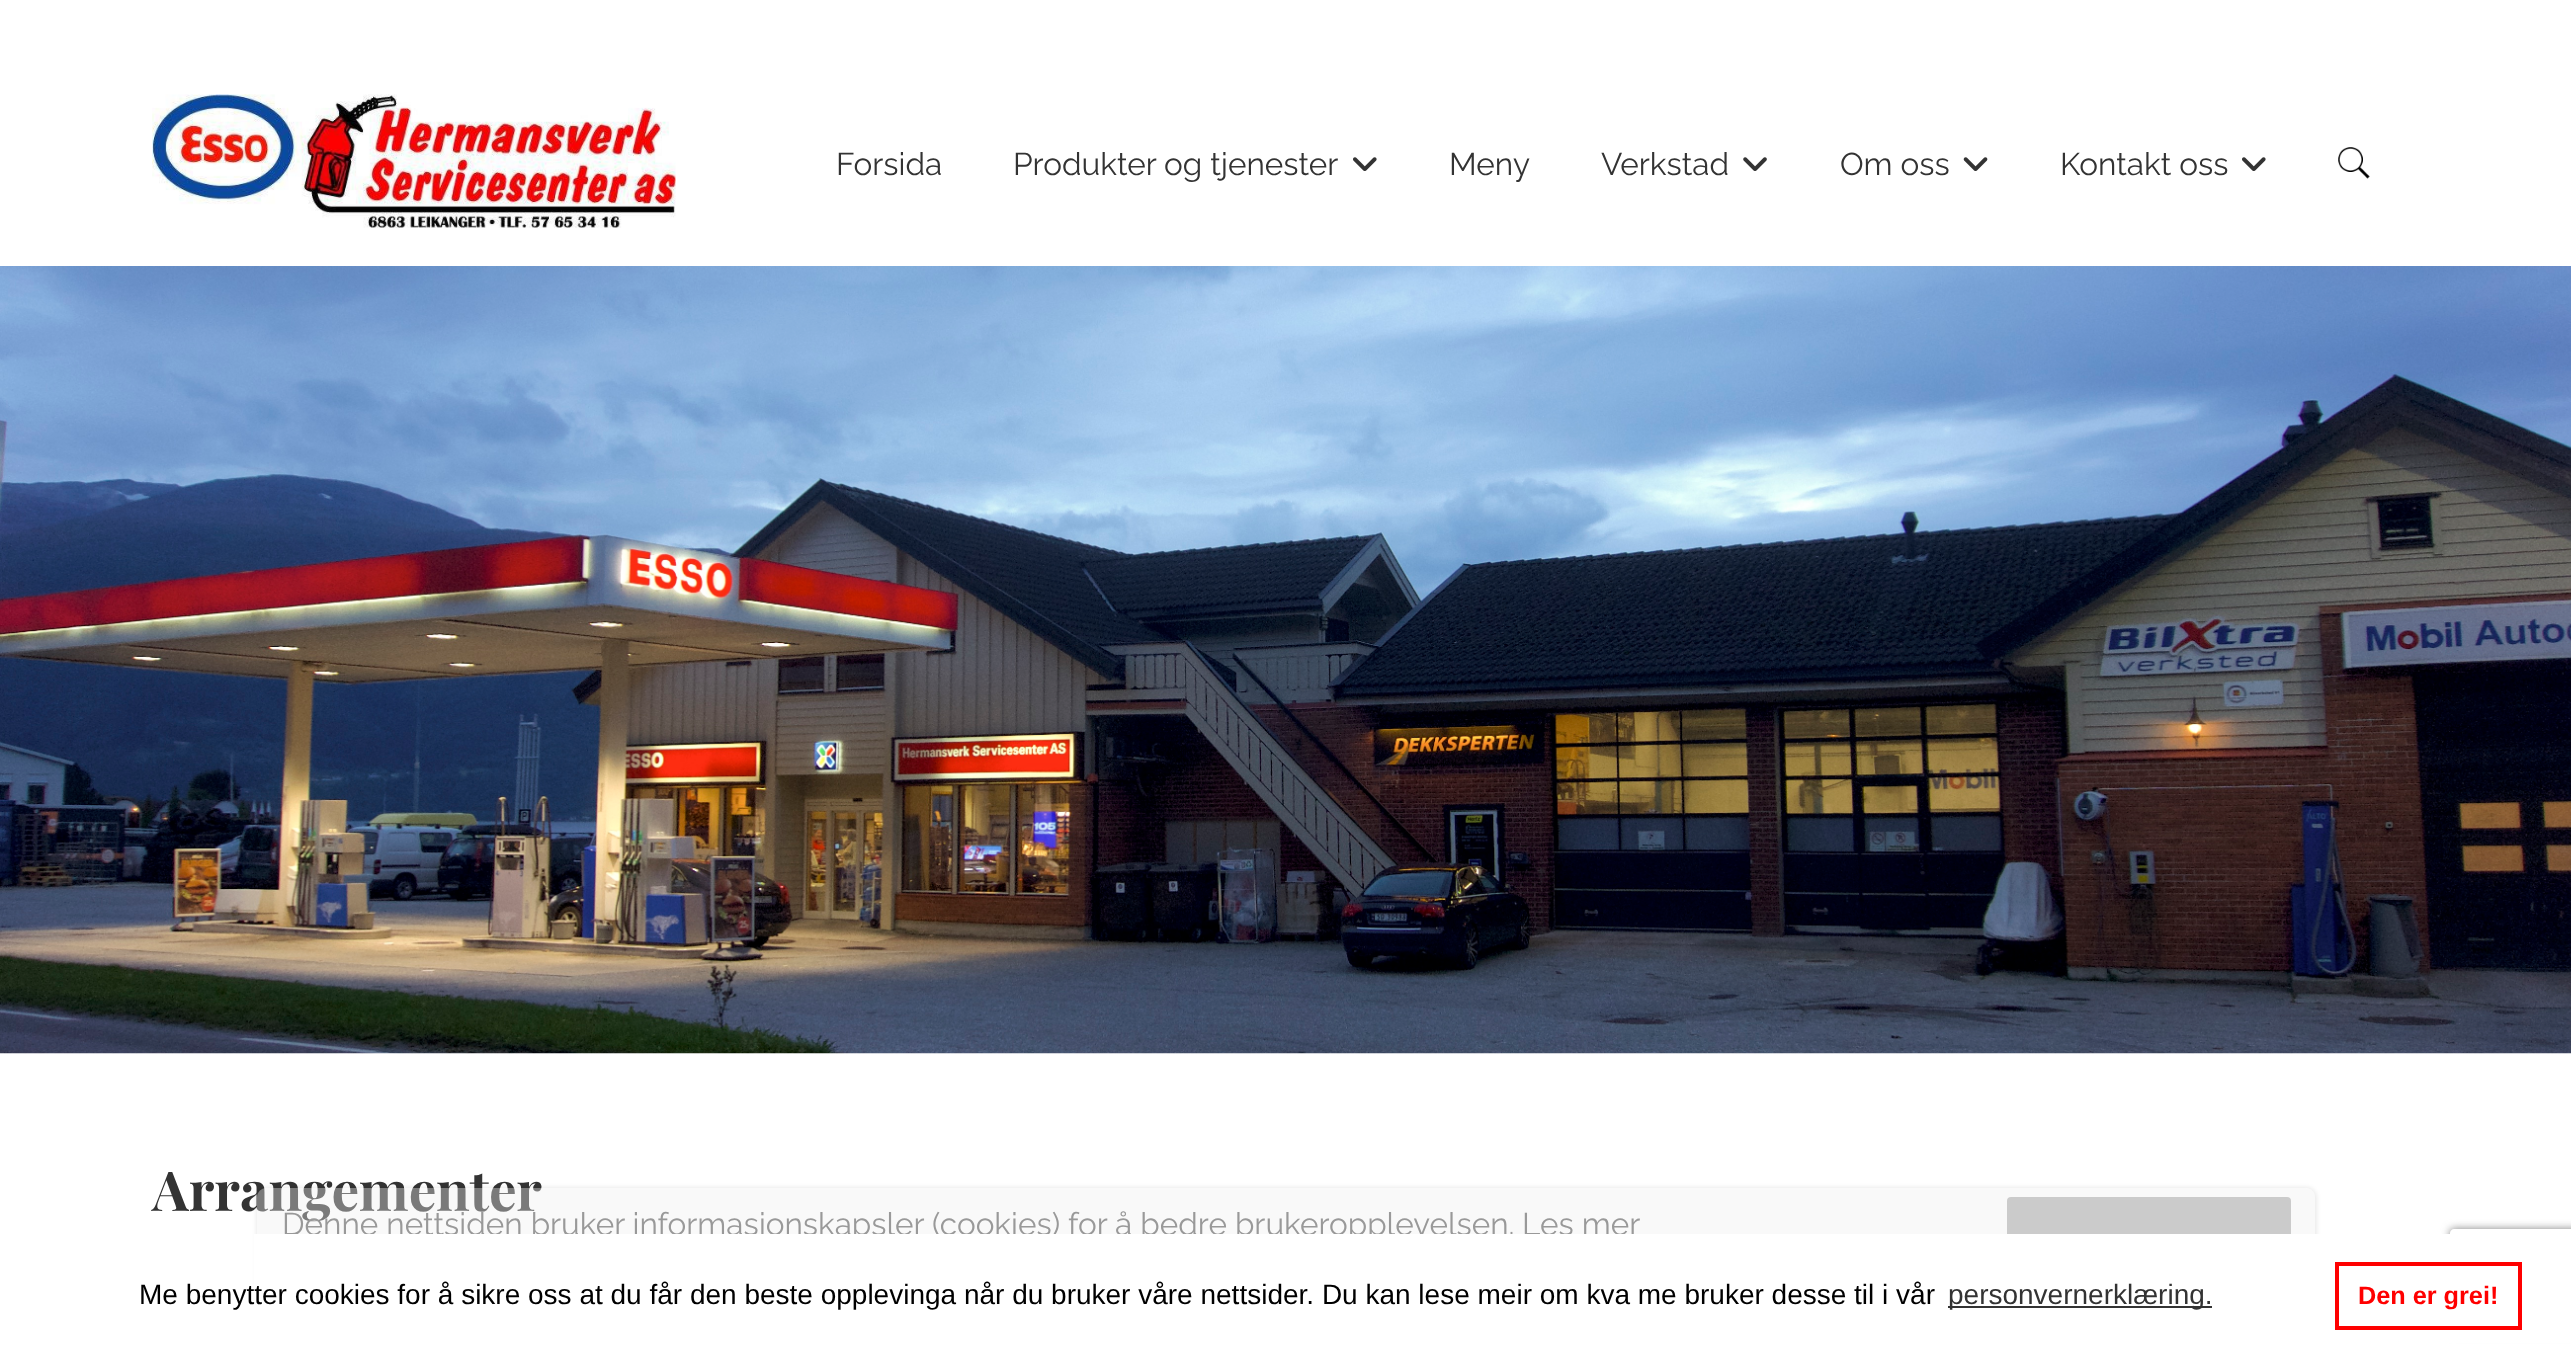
<svg xmlns="http://www.w3.org/2000/svg" width="2571" height="1357">
<defs>
<clipPath id="clip1"><path d="M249 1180h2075v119h-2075zm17 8h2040c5 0 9 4 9 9v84c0 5-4 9-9 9h-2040c-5 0-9-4-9-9v-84c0-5 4-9 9-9z" clip-rule="evenodd"/></clipPath>
<clipPath id="clip2"><path d="M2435 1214h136v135h-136zm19 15h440c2 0 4 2 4 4v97c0 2-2 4-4 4h-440c-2 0-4-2-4-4v-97c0-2 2-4 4-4z" clip-rule="evenodd"/></clipPath>
</defs>
<rect width="100%" height="100%" fill="#fff"/>
<image x="152" y="94" width="524" height="134" href="media/1.png"/>
<text x="836" y="175" style="font-family:Raleway;font-size:31.5px;fill:#333">Forsida</text>
<text x="1013" y="175" style="font-family:Raleway;font-size:31.5px;fill:#333">Produkter og tjenester</text>
<image x="1353" y="157" width="24" height="14" href="media/2.png"/>
<text x="1449" y="175" style="font-family:Raleway;font-size:31.5px;fill:#333">Meny</text>
<text x="1601" y="175" style="font-family:Raleway;font-size:31.5px;fill:#333">Verkstad</text>
<image x="1743" y="157" width="24" height="14" href="media/3.png"/>
<text x="1840" y="175" style="font-family:Raleway;font-size:31.5px;fill:#333">Om oss</text>
<image x="1963" y="157" width="25" height="14" href="media/4.png"/>
<text x="2060" y="175" style="font-family:Raleway;font-size:31.5px;fill:#333">Kontakt oss</text>
<image x="2242" y="157" width="24" height="14" href="media/2.png"/>
<image x="2338" y="147" width="32" height="32" href="media/5.png"/>
<image x="0" y="266" width="2571" height="788" href="media/6.png"/>
<text x="152" y="1211" style="font-family:Playfair Display;font-size:55px;font-weight:bold;fill:#333">Arrangementer</text>
<g clip-path="url(#clip1)">
<rect x="256" y="1187" width="2061" height="105" rx="11" fill="#00000014" filter="blur(2px)"/>
</g>
<rect x="257" y="1188" width="2058" height="102" rx="9" fill="#eeeeee61"/>
<text x="282" y="1235" style="font-family:Raleway;font-size:31.5px;fill:#999">Denne nettsiden bruker informasjonskapsler (cookies) for å bedre brukeropplevelsen.</text>
<text x="1522" y="1235" style="font-family:Raleway;font-size:31.5px;fill:#999">Les mer</text>
<rect x="2007" y="1197" width="284" height="84" rx="4" fill="#cbcbcb"/>
<g clip-path="url(#clip2)">
<rect x="2450" y="1229" width="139" height="105" rx="4" fill="#808080" filter="blur(4.5px)"/>
</g>
<rect x="254" y="1234" width="2317" height="109" fill="#fff"/>
<text x="139" y="1304" style="font-family:Liberation Sans;font-size:28px;fill:#000">Me benytter cookies for å sikre oss at du får den beste opplevinga når du bruker våre nettsider. Du kan lese meir om kva me bruker desse til i vår</text>
<rect x="1948" y="1306" width="264" height="2" fill="#333"/>
<text x="1948" y="1304" style="font-family:Liberation Sans;font-size:28px;fill:#333">personvernerklæring.</text>
<rect x="2337" y="1264" width="183" height="64" fill="none" stroke="#f00" stroke-width="4"/>
<text x="2358" y="1304" style="font-family:Liberation Sans;font-size:25.25px;font-weight:bold;fill:#f00">Den er grei!</text>
</svg>
